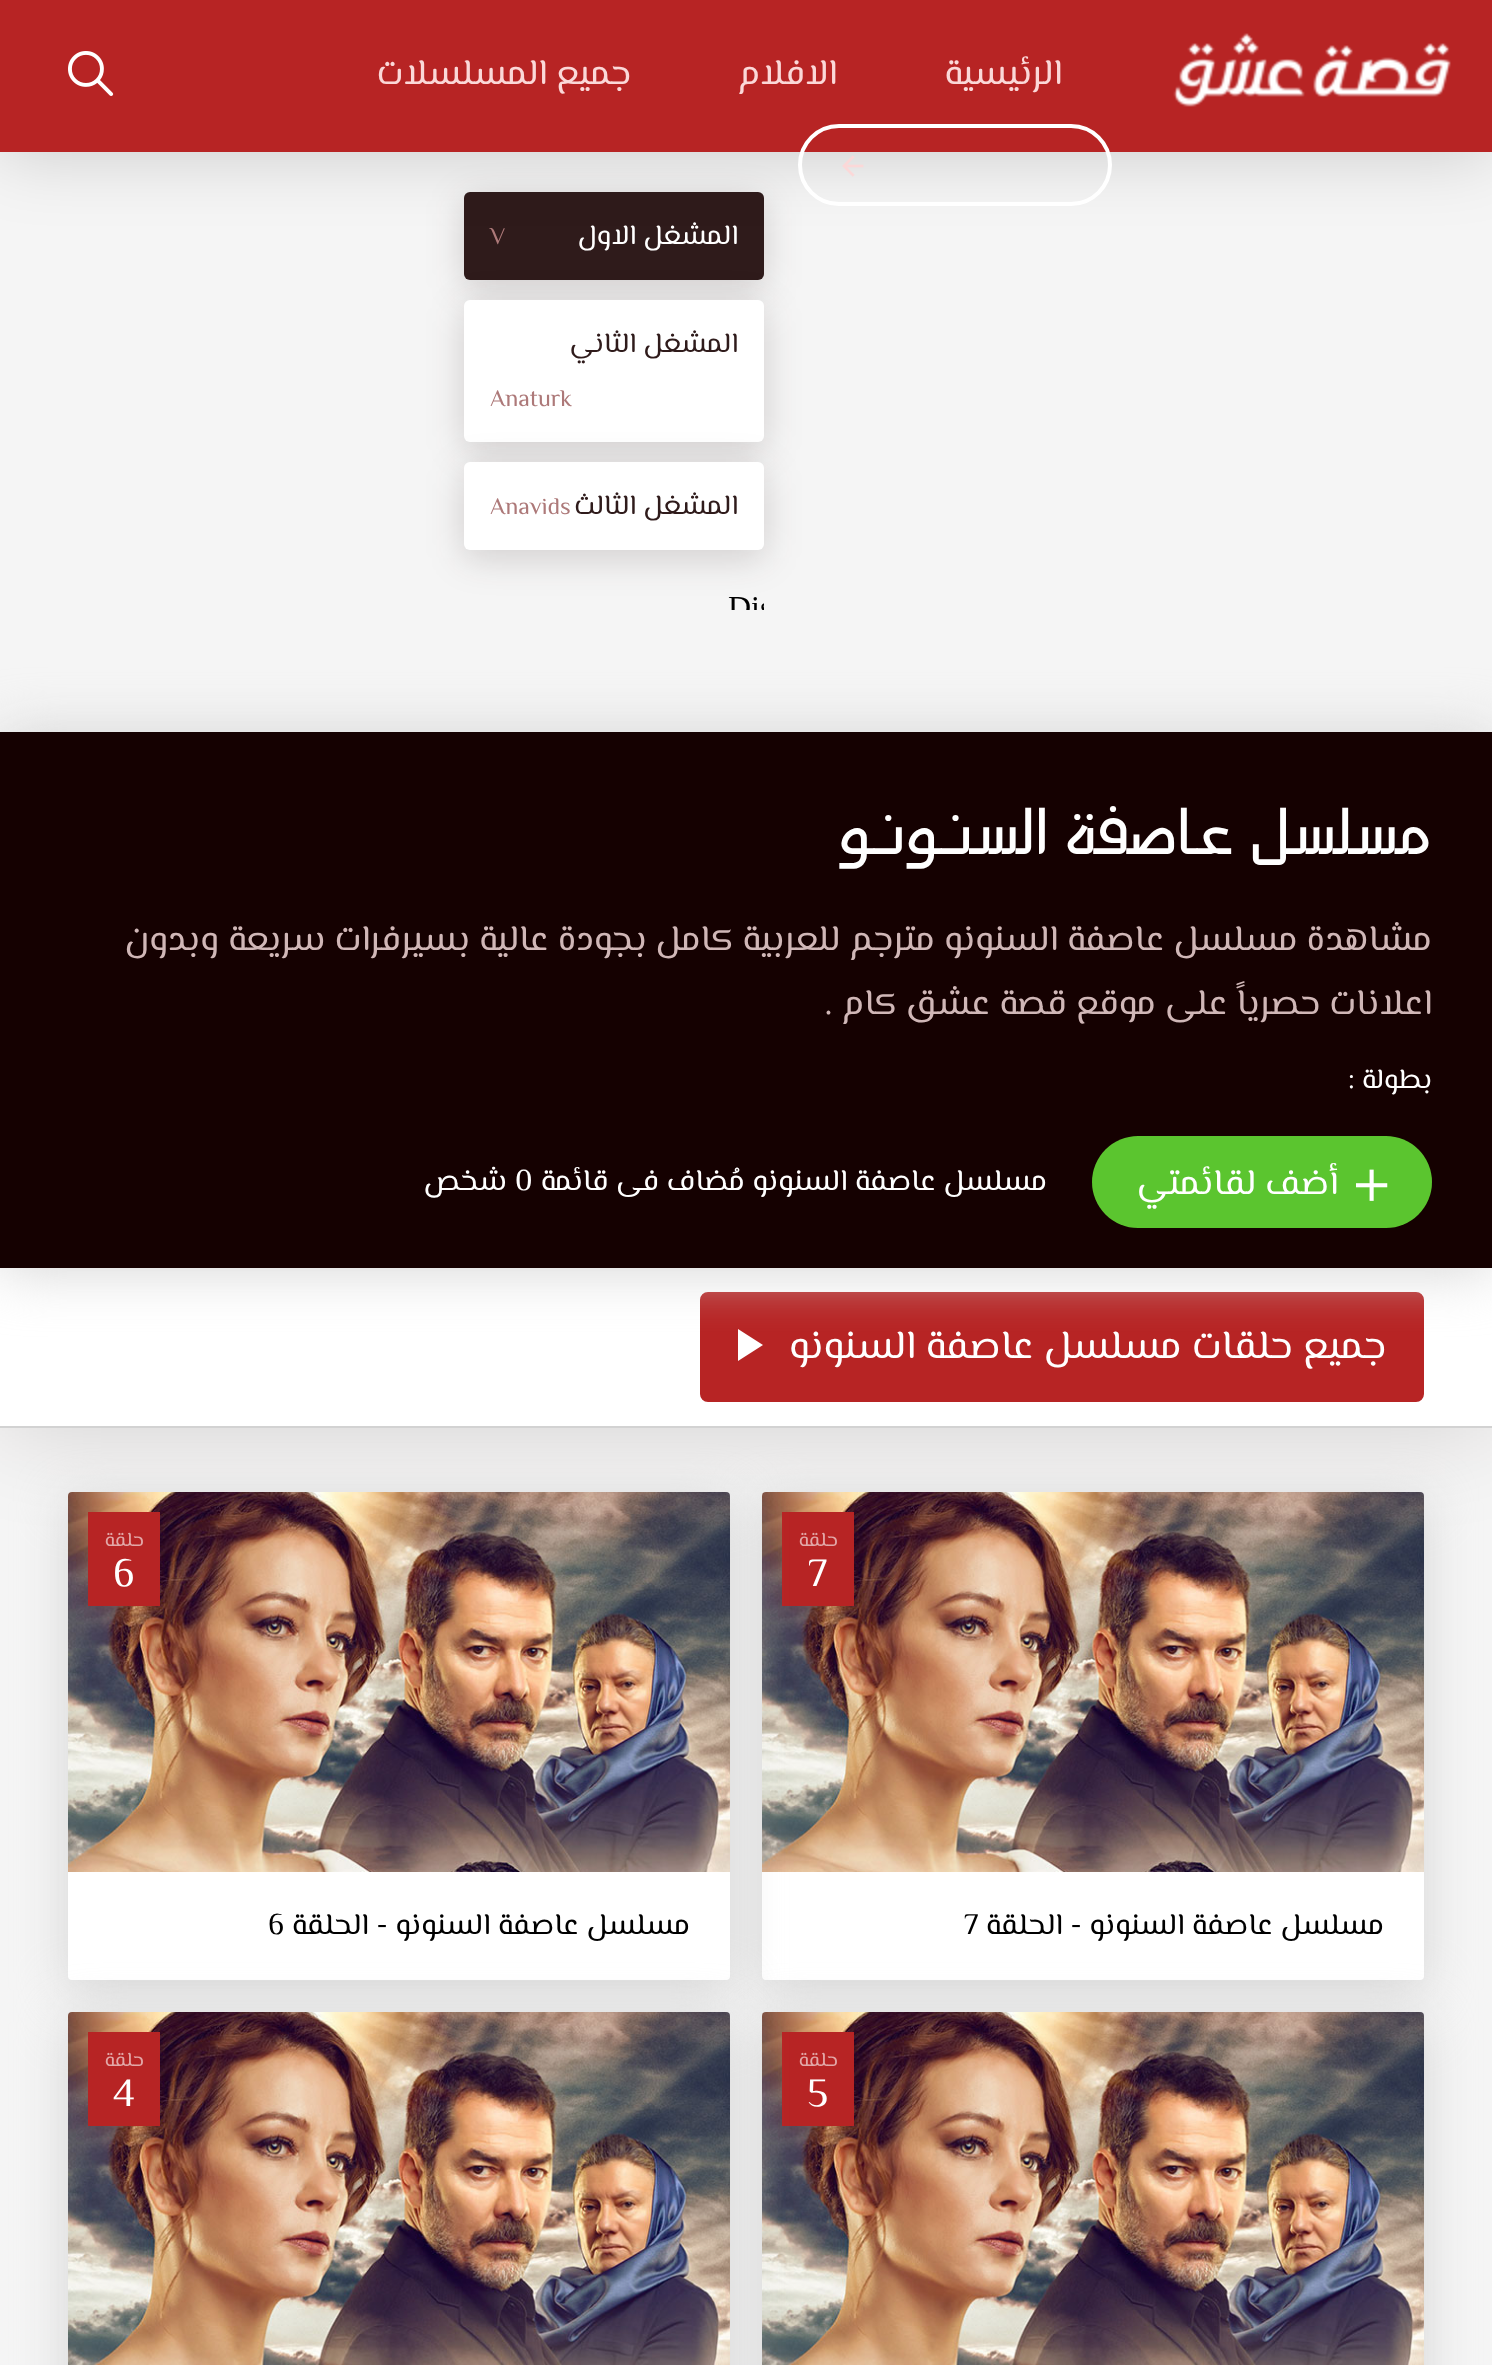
<svg xmlns="http://www.w3.org/2000/svg" width="1492" height="2365">
<rect width="100%" height="100%" fill="#f5f5f5"/>
<rect x="464" y="200" width="300" height="88" rx="6" fill="#2f1b1b2e" filter="blur(18px)"/>
<rect x="464" y="192" width="300" height="88" rx="6" fill="#2f1b1b"/>
<rect y="2" width="1492" height="152" fill="#0000002b" filter="blur(35px)"/>
<rect width="1492" height="152" fill="#b72424"/>
<image x="1173" y="33" width="278" height="74" href="media/1.png"/>
<text x="1062" y="84" style="font-family:El Messiri;font-size:36px;direction:rtl;fill:#fbd8d8">الرئيسية</text>
<text x="837" y="84" style="font-family:El Messiri;font-size:36px;direction:rtl;fill:#fbd8d8">الافلام</text>
<text x="631" y="84" style="font-family:El Messiri;font-size:36px;direction:rtl;fill:#fbd8d8">جميع المسلسلات</text>
<rect x="800" y="126" width="310" height="78" rx="39" fill="none" stroke="#fff" stroke-width="4"/>
<image x="842" y="155" width="22" height="22" href="media/2.png"/>
<image x="68" y="51" width="46" height="45" href="media/3.png"/>
<text x="738" y="244" style="font-family:El Messiri;font-size:28px;direction:rtl;fill:#fff">المشغل الاول</text>
<text x="490" y="244" style="font-family:El Messiri;font-size:24px;fill:#ad7979">V</text>
<rect x="464" y="308" width="300" height="142" rx="6" fill="#2f1b1b2e" filter="blur(18px)"/>
<rect x="464" y="300" width="300" height="142" rx="6" fill="#fff"/>
<text x="738" y="352" style="font-family:El Messiri;font-size:28px;direction:rtl;fill:#2f1b1b">المشغل الثاني</text>
<text x="490" y="406" style="font-family:El Messiri;font-size:24px;fill:#ad7979">Anaturk</text>
<rect x="464" y="470" width="300" height="88" rx="6" fill="#2f1b1b2e" filter="blur(18px)"/>
<rect x="464" y="462" width="300" height="88" rx="6" fill="#fff"/>
<text x="738" y="514" style="font-family:El Messiri;font-size:28px;direction:rtl;fill:#2f1b1b">المشغل الثالث</text>
<text x="490" y="514" style="font-family:El Messiri;font-size:24px;fill:#ad7979">Anavids</text>
<image x="728" y="597" width="36" height="13" href="media/4.png"/>
<rect y="1270" width="1492" height="158" fill="#15010126" filter="blur(50px)"/>
<rect y="1268" width="1492" height="158" fill="#fff"/>
<rect x="701" y="1293" width="722" height="108" rx="7" fill="#b72424" stroke="#b72424" stroke-width="2"/>
<path d="M738 1329l25 16l-25 16z" fill="#fff"/>
<rect y="734" width="1492" height="536" fill="#d4d4d4" filter="blur(28px)"/>
<rect y="732" width="1492" height="536" fill="#150101"/>
<text x="1432" y="854" style="font-family:Mada;font-size:74px;direction:rtl;fill:#fff">مسلسل عاصفة السنونو</text>
<text x="1432" y="950" style="font-family:El Messiri;font-size:36px;direction:rtl;fill:#d0b7b7">مشاهدة مسلسل عاصفة السنونو مترجم للعربية كامل بجودة عالية بسيرفرات سريعة وبدون</text>
<text x="1432" y="1014" style="font-family:El Messiri;font-size:36px;direction:rtl;fill:#d0b7b7">اعلانات حصرياً على موقع قصة عشق كام .</text>
<text x="1432" y="1088" style="font-family:El Messiri;font-size:28px;direction:rtl;fill:#fff">بطولة :</text>
<rect x="1092" y="1136" width="340" height="92" rx="46" fill="#5bc52f"/>
<image x="1356" y="1169" width="32" height="32" href="media/5.png"/>
<text x="1338" y="1194" style="font-family:El Messiri;font-size:36px;direction:rtl;fill:#fff">أضف لقائمتي</text>
<text x="1047" y="1190" style="font-family:El Messiri;font-size:30px;direction:rtl;fill:#fff">مسلسل عاصفة السنونو مُضاف فى قائمة</text>
<text x="515" y="1190" style="font-family:El Messiri;font-size:30px;fill:#fff">0</text>
<text x="507" y="1190" style="font-family:El Messiri;font-size:30px;direction:rtl;fill:#fff">شخص</text>
<text x="1386" y="1358" style="font-family:El Messiri;font-size:40px;direction:rtl;fill:#fff">جميع حلقات مسلسل عاصفة السنونو</text>
<rect y="1426" width="1492" height="2" fill="#d2d2d2"/>
<rect x="762" y="1502" width="662" height="488" rx="4" fill="#d4d4d4" filter="blur(25px)"/>
<rect x="762" y="1492" width="662" height="488" rx="4" fill="#fff"/>
<image x="762" y="1492" width="662" height="380" href="media/6.png"/>
<rect x="782" y="1512" width="72" height="94" fill="#b72424"/>
<text x="838" y="1546" style="font-family:El Messiri;font-size:20px;direction:rtl;fill:#e2a7a7">حلقة</text>
<text x="808" y="1586" style="font-family:El Messiri;font-size:40px;fill:#fff">7</text>
<text x="1384" y="1934" style="font-family:El Messiri;font-size:30px;direction:rtl;fill:#000">مسلسل عاصفة السنونو - الحلقة</text>
<text x="964" y="1934" style="font-family:El Messiri;font-size:30px;fill:#000">7</text>
<rect x="68" y="1502" width="662" height="488" rx="4" fill="#d4d4d4" filter="blur(25px)"/>
<rect x="68" y="1492" width="662" height="488" rx="4" fill="#fff"/>
<image x="68" y="1492" width="662" height="380" href="media/7.png"/>
<rect x="88" y="1512" width="72" height="94" fill="#b72424"/>
<text x="144" y="1546" style="font-family:El Messiri;font-size:20px;direction:rtl;fill:#e2a7a7">حلقة</text>
<text x="113" y="1586" style="font-family:El Messiri;font-size:40px;fill:#fff">6</text>
<text x="690" y="1934" style="font-family:El Messiri;font-size:30px;direction:rtl;fill:#000">مسلسل عاصفة السنونو - الحلقة</text>
<text x="268" y="1934" style="font-family:El Messiri;font-size:30px;fill:#000">6</text>
<rect x="762" y="2022" width="662" height="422" rx="4" fill="#d4d4d4" filter="blur(25px)"/>
<image x="762" y="2012" width="662" height="353" href="media/8.png"/>
<rect x="782" y="2032" width="72" height="94" fill="#b72424"/>
<text x="838" y="2066" style="font-family:El Messiri;font-size:20px;direction:rtl;fill:#e2a7a7">حلقة</text>
<text x="807" y="2106" style="font-family:El Messiri;font-size:40px;fill:#fff">5</text>
<rect x="68" y="2022" width="662" height="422" rx="4" fill="#d4d4d4" filter="blur(25px)"/>
<image x="68" y="2012" width="662" height="353" href="media/9.png"/>
<rect x="88" y="2032" width="72" height="94" fill="#b72424"/>
<text x="144" y="2066" style="font-family:El Messiri;font-size:20px;direction:rtl;fill:#e2a7a7">حلقة</text>
<text x="113" y="2106" style="font-family:El Messiri;font-size:40px;fill:#fff">4</text>
</svg>
